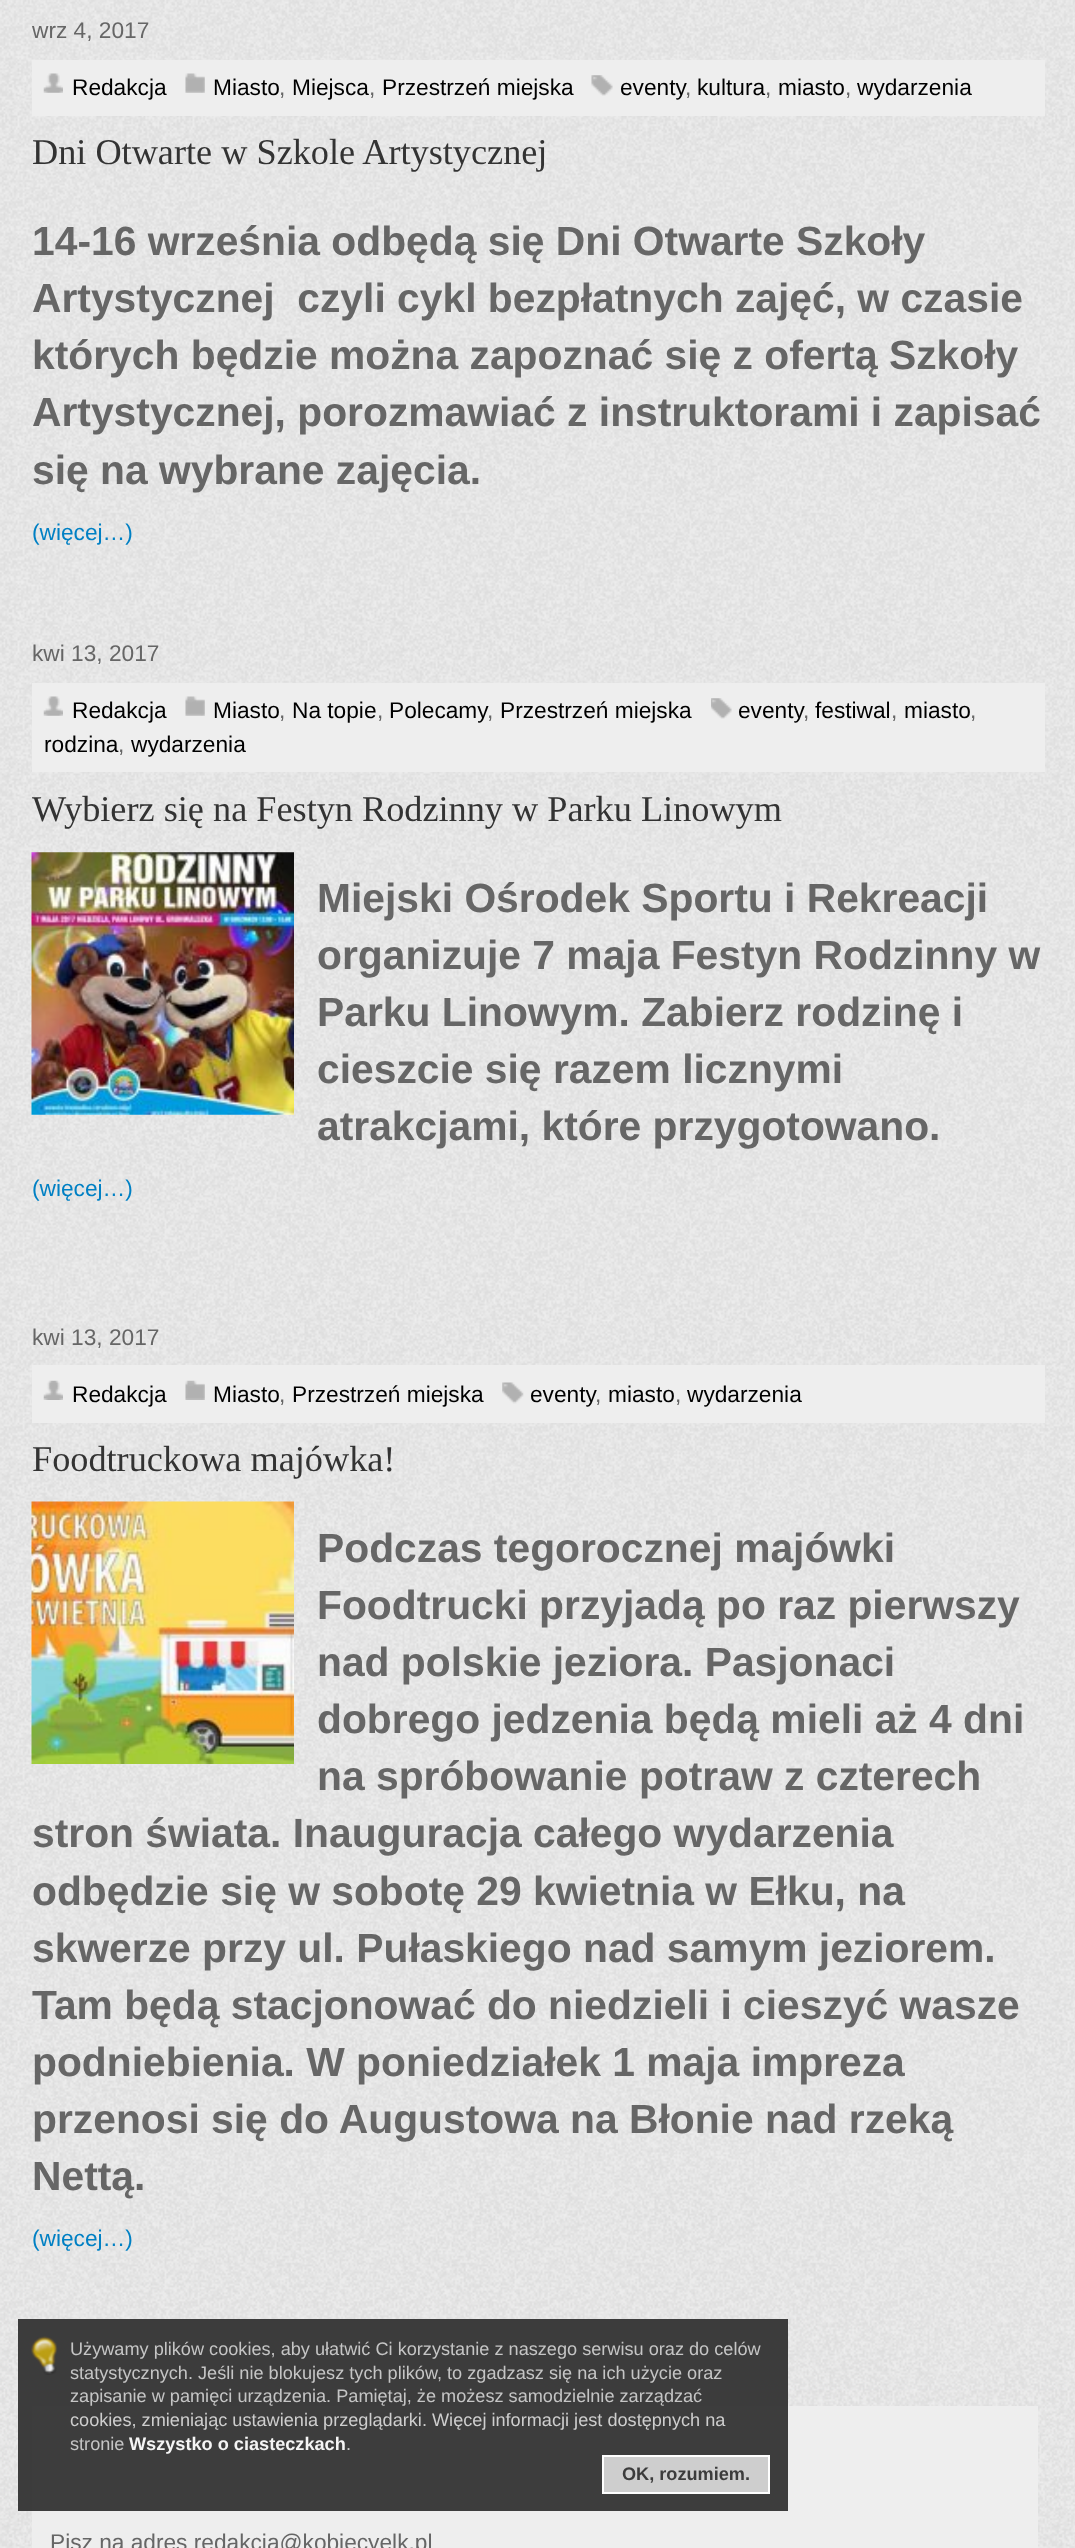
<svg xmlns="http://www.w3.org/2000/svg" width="1075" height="2548">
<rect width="100%" height="100%" fill="#fff"/>
<image x="0" y="0" width="1075" height="2548" href="media/1.png"/>
<text x="32" y="38" style="font-family:Liberation Sans;font-size:22.7px;fill:#666">wrz 4, 2017</text>
<rect x="32" y="60" width="1013" height="56" fill="#eee"/>
<image x="43" y="73" width="20" height="20" href="media/2.png"/>
<text x="72" y="95" style="font-family:Liberation Sans;font-size:22.7px;fill:#000">Redakcja</text>
<image x="185" y="73" width="20" height="20" href="media/3.png"/>
<text x="213" y="95" style="font-family:Liberation Sans;font-size:22.7px;fill:#000">Miasto</text>
<text x="279" y="95" style="font-family:Liberation Sans;font-size:22.7px;fill:#666">,</text>
<text x="292" y="95" style="font-family:Liberation Sans;font-size:22.7px;fill:#000">Miejsca</text>
<text x="369" y="95" style="font-family:Liberation Sans;font-size:22.7px;fill:#666">,</text>
<text x="382" y="95" style="font-family:Liberation Sans;font-size:22.7px;fill:#000">Przestrzeń miejska</text>
<image x="591" y="75" width="22" height="21" href="media/4.png"/>
<text x="620" y="95" style="font-family:Liberation Sans;font-size:22.7px;fill:#000">eventy</text>
<text x="685" y="95" style="font-family:Liberation Sans;font-size:22.7px;fill:#666">,</text>
<text x="697" y="95" style="font-family:Liberation Sans;font-size:22.7px;fill:#000">kultura</text>
<text x="765" y="95" style="font-family:Liberation Sans;font-size:22.7px;fill:#666">,</text>
<text x="778" y="95" style="font-family:Liberation Sans;font-size:22.7px;fill:#000">miasto</text>
<text x="845" y="95" style="font-family:Liberation Sans;font-size:22.7px;fill:#666">,</text>
<text x="857" y="95" style="font-family:Liberation Sans;font-size:22.7px;fill:#000">wydarzenia</text>
<text x="32" y="164" style="font-family:Liberation Serif;font-size:36.25px;fill:#333">Dni Otwarte w Szkole Artystycznej</text>
<text x="32" y="255" style="font-family:Liberation Sans;font-size:40.8px;font-weight:bold;fill:#666">14-16 września odbędą się Dni Otwarte Szkoły</text>
<text x="32" y="312" style="font-family:Liberation Sans;font-size:40.8px;font-weight:bold;fill:#666" xml:space="preserve">Artystycznej  czyli cykl bezpłatnych zajęć, w czasie</text>
<text x="32" y="369" style="font-family:Liberation Sans;font-size:40.8px;font-weight:bold;fill:#666">których będzie można zapoznać się z ofertą Szkoły</text>
<text x="32" y="426" style="font-family:Liberation Sans;font-size:40.8px;font-weight:bold;fill:#666">Artystycznej, porozmawiać z instruktorami i zapisać</text>
<text x="32" y="484" style="font-family:Liberation Sans;font-size:40.8px;font-weight:bold;fill:#666">się na wybrane zajęcia.</text>
<text x="32" y="540" style="font-family:Liberation Sans;font-size:22.7px;fill:#0080c4">(więcej…)</text>
<text x="32" y="661" style="font-family:Liberation Sans;font-size:22.7px;fill:#666">kwi 13, 2017</text>
<rect x="32" y="683" width="1013" height="89" fill="#eee"/>
<image x="43" y="696" width="20" height="20" href="media/2.png"/>
<text x="72" y="718" style="font-family:Liberation Sans;font-size:22.7px;fill:#000">Redakcja</text>
<image x="185" y="696" width="20" height="20" href="media/3.png"/>
<text x="213" y="718" style="font-family:Liberation Sans;font-size:22.7px;fill:#000">Miasto</text>
<text x="279" y="718" style="font-family:Liberation Sans;font-size:22.7px;fill:#666">,</text>
<text x="292" y="718" style="font-family:Liberation Sans;font-size:22.7px;fill:#000">Na topie</text>
<text x="377" y="718" style="font-family:Liberation Sans;font-size:22.7px;fill:#666">,</text>
<text x="389" y="718" style="font-family:Liberation Sans;font-size:22.7px;fill:#000">Polecamy</text>
<text x="487" y="718" style="font-family:Liberation Sans;font-size:22.7px;fill:#666">,</text>
<text x="500" y="718" style="font-family:Liberation Sans;font-size:22.7px;fill:#000">Przestrzeń miejska</text>
<image x="711" y="698" width="21" height="21" href="media/5.png"/>
<text x="738" y="718" style="font-family:Liberation Sans;font-size:22.7px;fill:#000">eventy</text>
<text x="803" y="718" style="font-family:Liberation Sans;font-size:22.7px;fill:#666">,</text>
<text x="815" y="718" style="font-family:Liberation Sans;font-size:22.7px;fill:#000">festiwal</text>
<text x="891" y="718" style="font-family:Liberation Sans;font-size:22.7px;fill:#666">,</text>
<text x="904" y="718" style="font-family:Liberation Sans;font-size:22.7px;fill:#000">miasto</text>
<text x="970" y="718" style="font-family:Liberation Sans;font-size:22.7px;fill:#666">,</text>
<text x="44" y="752" style="font-family:Liberation Sans;font-size:22.7px;fill:#000">rodzina</text>
<text x="118" y="752" style="font-family:Liberation Sans;font-size:22.7px;fill:#666">,</text>
<text x="131" y="752" style="font-family:Liberation Sans;font-size:22.7px;fill:#000">wydarzenia</text>
<text x="32" y="821" style="font-family:Liberation Serif;font-size:36.25px;fill:#333">Wybierz się na Festyn Rodzinny w Parku Linowym</text>
<image x="31" y="852" width="263" height="263" href="media/6.png"/>
<text x="317" y="912" style="font-family:Liberation Sans;font-size:40.8px;font-weight:bold;fill:#666">Miejski Ośrodek Sportu i Rekreacji</text>
<text x="317" y="969" style="font-family:Liberation Sans;font-size:40.8px;font-weight:bold;fill:#666">organizuje 7 maja Festyn Rodzinny w</text>
<text x="317" y="1026" style="font-family:Liberation Sans;font-size:40.8px;font-weight:bold;fill:#666">Parku Linowym. Zabierz rodzinę i</text>
<text x="317" y="1083" style="font-family:Liberation Sans;font-size:40.8px;font-weight:bold;fill:#666">cieszcie się razem licznymi</text>
<text x="317" y="1140" style="font-family:Liberation Sans;font-size:40.8px;font-weight:bold;fill:#666">atrakcjami, które przygotowano.</text>
<text x="32" y="1196" style="font-family:Liberation Sans;font-size:22.7px;fill:#0080c4">(więcej…)</text>
<text x="32" y="1345" style="font-family:Liberation Sans;font-size:22.7px;fill:#666">kwi 13, 2017</text>
<rect x="32" y="1365" width="1013" height="58" fill="#eee"/>
<image x="43" y="1380" width="20" height="20" href="media/7.png"/>
<text x="72" y="1402" style="font-family:Liberation Sans;font-size:22.7px;fill:#000">Redakcja</text>
<image x="185" y="1380" width="20" height="20" href="media/8.png"/>
<text x="213" y="1402" style="font-family:Liberation Sans;font-size:22.7px;fill:#000">Miasto</text>
<text x="279" y="1402" style="font-family:Liberation Sans;font-size:22.7px;fill:#666">,</text>
<text x="292" y="1402" style="font-family:Liberation Sans;font-size:22.7px;fill:#000">Przestrzeń miejska</text>
<image x="502" y="1382" width="22" height="22" href="media/9.png"/>
<text x="530" y="1402" style="font-family:Liberation Sans;font-size:22.7px;fill:#000">eventy</text>
<text x="595" y="1402" style="font-family:Liberation Sans;font-size:22.7px;fill:#666">,</text>
<text x="608" y="1402" style="font-family:Liberation Sans;font-size:22.7px;fill:#000">miasto</text>
<text x="675" y="1402" style="font-family:Liberation Sans;font-size:22.7px;fill:#666">,</text>
<text x="687" y="1402" style="font-family:Liberation Sans;font-size:22.7px;fill:#000">wydarzenia</text>
<text x="32" y="1471" style="font-family:Liberation Serif;font-size:36.25px;fill:#333">Foodtruckowa majówka!</text>
<image x="31" y="1501" width="263" height="263" href="media/10.png"/>
<text x="317" y="1562" style="font-family:Liberation Sans;font-size:40.8px;font-weight:bold;fill:#666">Podczas tegorocznej majówki</text>
<text x="317" y="1619" style="font-family:Liberation Sans;font-size:40.8px;font-weight:bold;fill:#666">Foodtrucki przyjadą po raz pierwszy</text>
<text x="317" y="1676" style="font-family:Liberation Sans;font-size:40.8px;font-weight:bold;fill:#666">nad polskie jeziora. Pasjonaci</text>
<text x="317" y="1733" style="font-family:Liberation Sans;font-size:40.8px;font-weight:bold;fill:#666">dobrego jedzenia będą mieli aż 4 dni</text>
<text x="317" y="1790" style="font-family:Liberation Sans;font-size:40.8px;font-weight:bold;fill:#666">na spróbowanie potraw z czterech</text>
<text x="32" y="1847" style="font-family:Liberation Sans;font-size:40.8px;font-weight:bold;fill:#666">stron świata. Inauguracja całego wydarzenia</text>
<text x="32" y="1905" style="font-family:Liberation Sans;font-size:40.8px;font-weight:bold;fill:#666">odbędzie się w sobotę 29 kwietnia w Ełku, na</text>
<text x="32" y="1962" style="font-family:Liberation Sans;font-size:40.8px;font-weight:bold;fill:#666">skwerze przy ul. Pułaskiego nad samym jeziorem.</text>
<text x="32" y="2019" style="font-family:Liberation Sans;font-size:40.8px;font-weight:bold;fill:#666">Tam będą stacjonować do niedzieli i cieszyć wasze</text>
<text x="32" y="2076" style="font-family:Liberation Sans;font-size:40.8px;font-weight:bold;fill:#666">podniebienia. W poniedziałek 1 maja impreza</text>
<text x="32" y="2133" style="font-family:Liberation Sans;font-size:40.8px;font-weight:bold;fill:#666">przenosi się do Augustowa na Błonie nad rzeką</text>
<text x="32" y="2190" style="font-family:Liberation Sans;font-size:40.8px;font-weight:bold;fill:#666">Nettą.</text>
<text x="32" y="2246" style="font-family:Liberation Sans;font-size:22.7px;fill:#0080c4">(więcej…)</text>
<rect x="32" y="2406" width="1006" height="142" fill="#eee"/>
<text x="50" y="2550" style="font-family:Liberation Sans;font-size:22.7px;fill:#666">Pisz na adres redakcja@kobiecyelk.pl</text>
<rect x="18" y="2319" width="770" height="192" fill="#333333f2"/>
<image x="31" y="2336" width="27" height="39" href="media/11.png"/>
<text x="70" y="2355" style="font-family:Liberation Sans;font-size:18.15px;fill:#c5c5c5">Używamy plików cookies, aby ułatwić Ci korzystanie z naszego serwisu oraz do celów</text>
<text x="70" y="2379" style="font-family:Liberation Sans;font-size:18.15px;fill:#c5c5c5">statystycznych. Jeśli nie blokujesz tych plików, to zgadzasz się na ich użycie oraz</text>
<text x="70" y="2402" style="font-family:Liberation Sans;font-size:18.15px;fill:#c5c5c5">zapisanie w pamięci urządzenia. Pamiętaj, że możesz samodzielnie zarządzać</text>
<text x="70" y="2426" style="font-family:Liberation Sans;font-size:18.15px;fill:#cecece">cookies, zmieniając ustawienia przeglądarki. Więcej informacji jest dostępnych na</text>
<text x="70" y="2450" style="font-family:Liberation Sans;font-size:18.15px;fill:#c5c5c5">stronie</text>
<text x="129" y="2450" style="font-family:Liberation Sans;font-size:18.15px;font-weight:bold;fill:#f5f5f5">Wszystko o ciasteczkach</text>
<text x="346" y="2450" style="font-family:Liberation Sans;font-size:18.15px;fill:#cecece">.</text>
<rect x="603" y="2456" width="166" height="37" fill="#cecece" stroke="#fefefe" stroke-width="2"/>
<text x="622" y="2480" style="font-family:Liberation Sans;font-size:18.15px;font-weight:bold;fill:#3c3c3c">OK, rozumiem.</text>
</svg>
